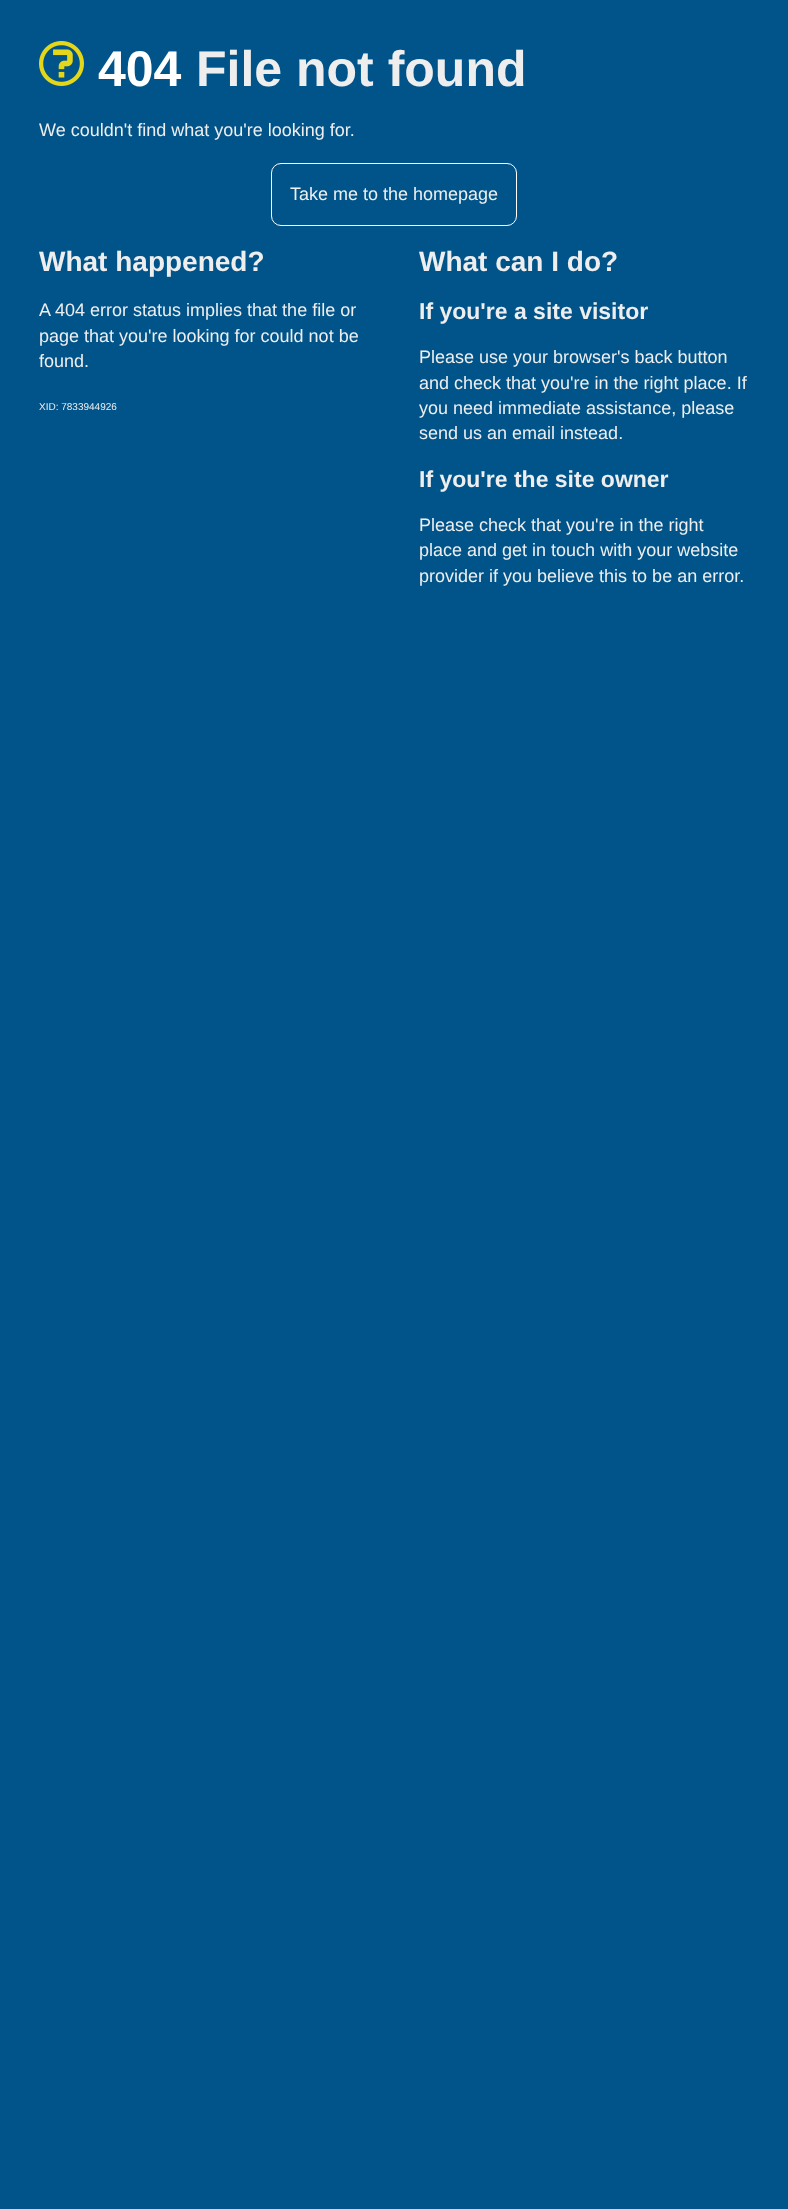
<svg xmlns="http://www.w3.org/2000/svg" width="788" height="2209">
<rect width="100%" height="100%" fill="#00548a"/>
<image x="39" y="41" width="45" height="45" href="media/1.png"/>
<text x="98" y="86" style="font-family:Liberation Sans;font-size:50px;font-weight:bold;fill:#fff">404</text>
<text x="196" y="86" style="font-family:Liberation Sans;font-size:50px;font-weight:bold;fill:#eee">File not found</text>
<text x="39" y="136" style="font-family:Liberation Sans;font-size:18px;fill:#eee">We couldn't find what you're looking for.</text>
<rect x="271.5" y="163.5" width="245" height="62" rx="9.5" fill="none" stroke="#fff"/>
<text x="290" y="200" style="font-family:Liberation Sans;font-size:18px;fill:#eee">Take me to the homepage</text>
<text x="39" y="271" style="font-family:Liberation Sans;font-size:28px;font-weight:bold;fill:#eee">What happened?</text>
<text x="39" y="316" style="font-family:Liberation Sans;font-size:18px;fill:#eee">A 404 error status implies that the file or</text>
<text x="39" y="342" style="font-family:Liberation Sans;font-size:18px;fill:#eee">page that you're looking for could not be</text>
<text x="39" y="367" style="font-family:Liberation Sans;font-size:18px;fill:#eee">found.</text>
<text x="39" y="410" style="font-family:Liberation Sans;font-size:10px;fill:#eee">XID: 7833944926</text>
<text x="419" y="271" style="font-family:Liberation Sans;font-size:28px;font-weight:bold;fill:#eee">What can I do?</text>
<text x="419" y="319" style="font-family:Liberation Sans;font-size:23px;font-weight:bold;fill:#eee">If you're a site visitor</text>
<text x="419" y="363" style="font-family:Liberation Sans;font-size:18px;fill:#eee">Please use your browser's back button</text>
<text x="419" y="389" style="font-family:Liberation Sans;font-size:18px;fill:#eee">and check that you're in the right place. If</text>
<text x="419" y="414" style="font-family:Liberation Sans;font-size:18px;fill:#eee">you need immediate assistance, please</text>
<text x="419" y="439" style="font-family:Liberation Sans;font-size:18px;fill:#eee">send us an email instead.</text>
<text x="419" y="487" style="font-family:Liberation Sans;font-size:23px;font-weight:bold;fill:#eee">If you're the site owner</text>
<text x="419" y="531" style="font-family:Liberation Sans;font-size:18px;fill:#eee">Please check that you're in the right</text>
<text x="419" y="556" style="font-family:Liberation Sans;font-size:18px;fill:#eee">place and get in touch with your website</text>
<text x="419" y="582" style="font-family:Liberation Sans;font-size:18px;fill:#eee">provider if you believe this to be an error.</text>
</svg>
